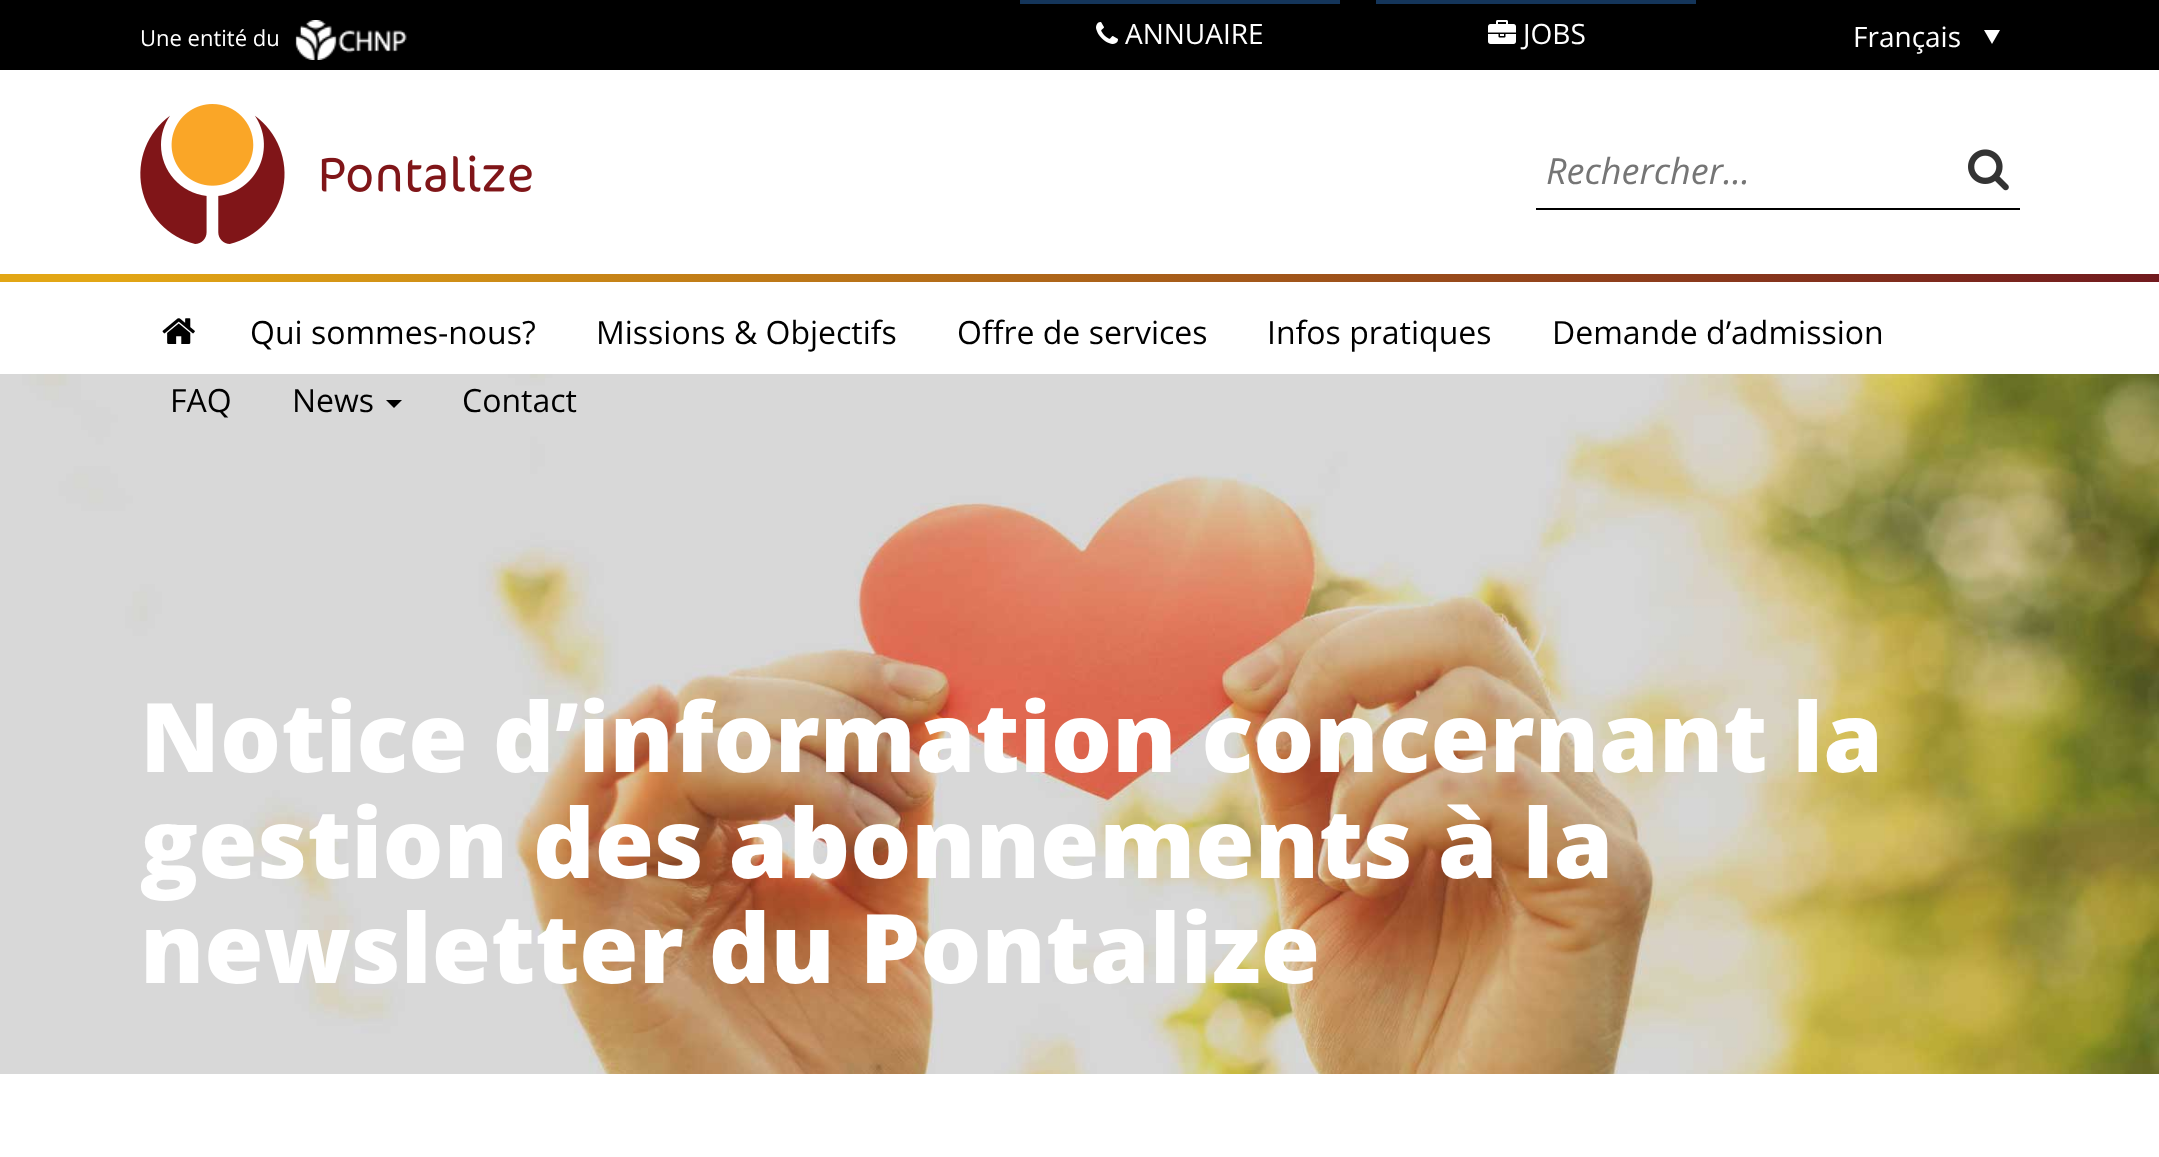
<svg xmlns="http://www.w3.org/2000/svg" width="2159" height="1157">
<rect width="100%" height="100%" fill="#fff"/>
<rect width="2159" height="70" fill="#000"/>
<text x="140" y="46" style="font-family:Open Sans;font-size:22px;fill:#fff">Une entité du</text>
<image x="295" y="20" width="112" height="40" href="media/1.png"/>
<rect x="1020" width="320" height="4" fill="#14355a"/>
<image x="1096" y="22" width="22" height="22" href="media/2.png"/>
<text x="1125" y="44" style="font-family:Open Sans;font-size:28px;fill:#fff">ANNUAIRE</text>
<rect x="1376" width="320" height="4" fill="#14355a"/>
<image x="1488" y="20" width="28" height="24" href="media/3.png"/>
<text x="1523" y="44" style="font-family:Open Sans;font-size:28px;fill:#fff">JOBS</text>
<text x="1853" y="47" style="font-family:Open Sans;font-size:28px;fill:#fff">Français</text>
<path d="M1984 30h16l-8 14z" fill="#fff"/>
<image x="140" y="104" width="392" height="140" href="media/4.png"/>
<rect x="1536" y="208" width="484" height="2" fill="#000"/>
<text x="1546" y="184" style="font-family:Open Sans;font-size:36px;font-style:italic;fill:#757575">Rechercher...</text>
<image x="1968" y="149" width="41" height="42" href="media/5.png"/>
<image x="0" y="274" width="2159" height="8" href="media/6.png"/>
<image x="162" y="318" width="33" height="26" href="media/7.png"/>
<text x="250" y="344" style="font-family:Open Sans;font-size:32px;fill:#000">Qui sommes-nous?</text>
<text x="596" y="344" style="font-family:Open Sans;font-size:32px;fill:#000">Missions &amp; Objectifs</text>
<text x="957" y="344" style="font-family:Open Sans;font-size:32px;fill:#000">Offre de services</text>
<text x="1267" y="344" style="font-family:Open Sans;font-size:32px;fill:#000">Infos pratiques</text>
<text x="1552" y="344" style="font-family:Open Sans;font-size:32px;fill:#000">Demande d’admission</text>
<image x="0" y="374" width="2159" height="700" href="media/8.png"/>
<text x="170" y="412" style="font-family:Open Sans;font-size:32px;fill:#000">FAQ</text>
<text x="292" y="412" style="font-family:Open Sans;font-size:32px;fill:#000">News</text>
<path d="M386 400h16l-8 8z" fill="#000"/>
<text x="462" y="412" style="font-family:Open Sans;font-size:32px;fill:#000">Contact</text>
<text x="140" y="772" style="font-family:Open Sans;font-size:96px;font-weight:800;fill:#fff">Notice d’information concernant la</text>
<text x="140" y="878" style="font-family:Open Sans;font-size:96px;font-weight:800;fill:#fff">gestion des abonnements à la</text>
<text x="140" y="983" style="font-family:Open Sans;font-size:96px;font-weight:800;fill:#fff">newsletter du Pontalize</text>
</svg>
